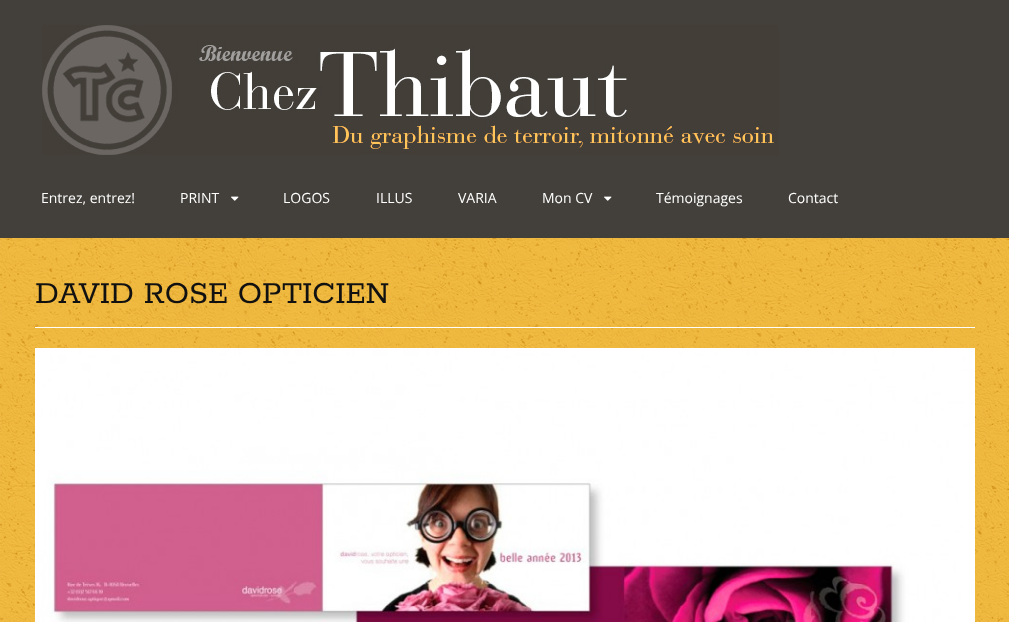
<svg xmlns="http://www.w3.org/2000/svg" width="1009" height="622">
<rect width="100%" height="100%" fill="#fff"/>
<image x="0" y="238" width="1009" height="384" href="media/1.png"/>
<rect width="1009" height="238" fill="#43403b"/>
<image x="42" y="25" width="737" height="130" href="media/2.png"/>
<text x="41" y="203" style="font-family:Open Sans;font-size:14px;fill:#fff">Entrez, entrez!</text>
<text x="180" y="203" style="font-family:Open Sans;font-size:14px;fill:#fff">PRINT</text>
<image x="231" y="196" width="8" height="5" href="media/3.png"/>
<text x="283" y="203" style="font-family:Open Sans;font-size:14px;fill:#fff">LOGOS</text>
<text x="376" y="203" style="font-family:Open Sans;font-size:14px;fill:#fff">ILLUS</text>
<text x="458" y="203" style="font-family:Open Sans;font-size:14px;fill:#fff">VARIA</text>
<text x="542" y="203" style="font-family:Open Sans;font-size:14px;fill:#fff">Mon CV</text>
<image x="604" y="196" width="8" height="5" href="media/3.png"/>
<text x="656" y="203" style="font-family:Open Sans;font-size:14px;fill:#fff">Témoignages</text>
<text x="788" y="203" style="font-family:Open Sans;font-size:14px;fill:#fff">Contact</text>
<rect x="35" y="327" width="940" height="1" fill="#fffdf9"/>
<text x="35" y="303" style="font-family:Rokkitt;font-size:34px;fill:#111">DAVID ROSE OPTICIEN</text>
<image x="35" y="348" width="940" height="274" href="media/4.png"/>
</svg>
